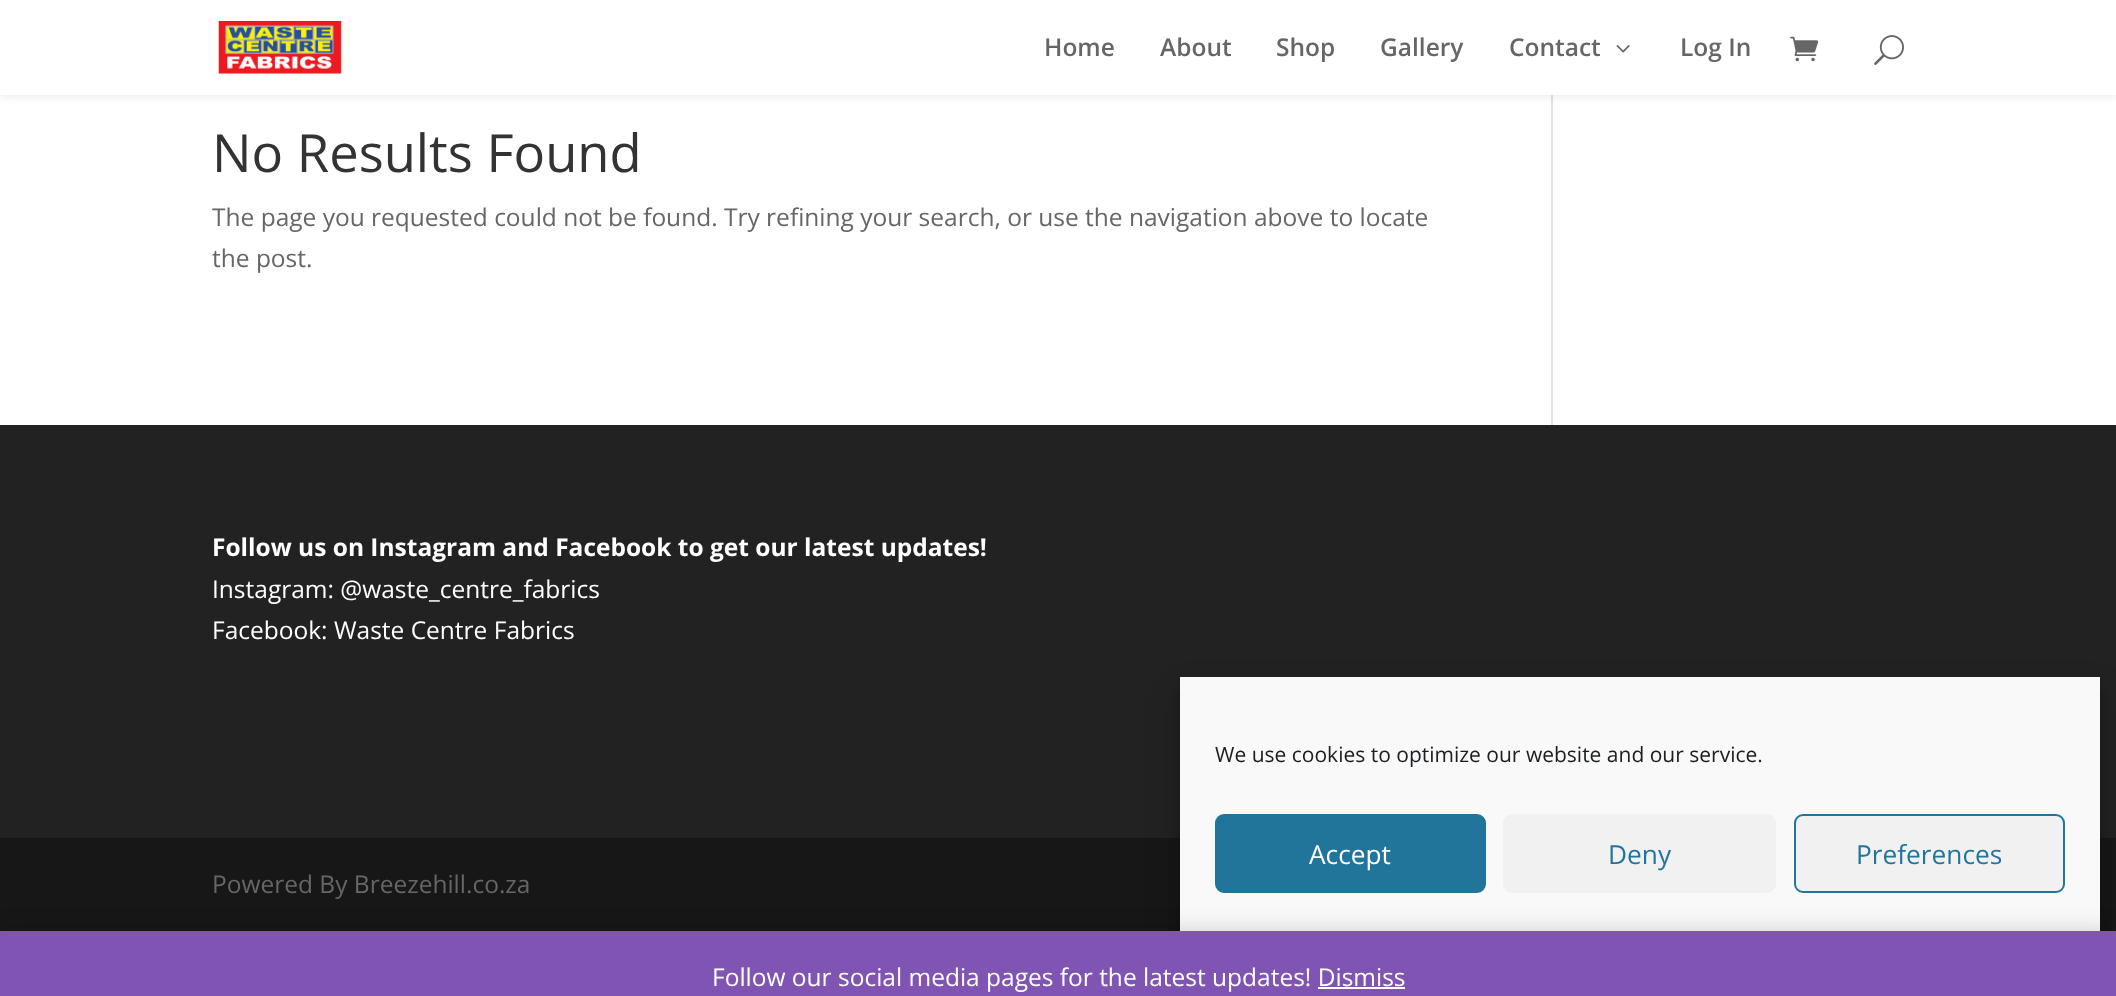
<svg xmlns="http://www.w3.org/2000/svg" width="2116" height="996">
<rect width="100%" height="100%" fill="#fff"/>
<rect x="1551" y="95" width="2" height="330" fill="#e2e2e2"/>
<rect width="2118" height="95" fill="#0000001a" filter="blur(6px)"/>
<rect width="2116" height="95" fill="#fff"/>
<image x="218" y="21" width="124" height="53" href="media/1.png"/>
<text x="1044" y="56" style="font-family:Open Sans;font-size:24.5px;font-weight:600;fill:#666">Home</text>
<text x="1160" y="56" style="font-family:Open Sans;font-size:24.5px;font-weight:600;fill:#666">About</text>
<text x="1276" y="56" style="font-family:Open Sans;font-size:24.5px;font-weight:600;fill:#666">Shop</text>
<text x="1380" y="56" style="font-family:Open Sans;font-size:24.5px;font-weight:600;fill:#666">Gallery</text>
<text x="1509" y="56" style="font-family:Open Sans;font-size:24.5px;font-weight:600;fill:#666">Contact</text>
<image x="1616" y="45" width="14" height="8" href="media/2.png"/>
<text x="1680" y="56" style="font-family:Open Sans;font-size:24.5px;font-weight:600;fill:#666">Log In</text>
<image x="1790" y="36" width="29" height="26" href="media/3.png"/>
<image x="1874" y="35" width="30" height="30" href="media/4.png"/>
<text x="212" y="172" style="font-family:Open Sans;font-size:52.5px;fill:#333">No Results Found</text>
<text x="212" y="226" style="font-family:Open Sans;font-size:24.5px;fill:#666">The page you requested could not be found. Try refining your search, or use the navigation above to locate</text>
<text x="212" y="267" style="font-family:Open Sans;font-size:24.5px;fill:#666">the post.</text>
<rect y="425" width="2116" height="413" fill="#222"/>
<text x="212" y="556" style="font-family:Open Sans;font-size:24.5px;font-weight:bold;fill:#fff">Follow us on Instagram and Facebook to get our latest updates!</text>
<text x="212" y="598" style="font-family:Open Sans;font-size:24.5px;fill:#fff">Instagram: @waste_centre_fabrics</text>
<text x="212" y="639" style="font-family:Open Sans;font-size:24.5px;fill:#fff">Facebook: Waste Centre Fabrics</text>
<rect y="838" width="2116" height="93" fill="#171717"/>
<text x="212" y="893" style="font-family:Open Sans;font-size:24.5px;fill:#666">Powered By Breezehill.co.za</text>
<rect x="1180" y="688" width="920" height="303" fill="#0000003b" filter="blur(5px)"/>
<rect x="1180" y="695" width="920" height="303" fill="#00000030" filter="blur(17.5px)"/>
<rect x="1180" y="677" width="920" height="254" fill="#f9f9f9"/>
<text x="1215" y="762" style="font-family:Open Sans;font-size:21px;fill:#191e23">We use cookies to optimize our website and our service.</text>
<rect x="1216" y="815" width="269" height="77" rx="8" fill="#21759b" stroke="#21759b" stroke-width="2"/>
<text x="1309" y="864" style="font-family:Open Sans;font-size:26.25px;fill:#fff">Accept</text>
<rect x="1503" y="814" width="273" height="79" rx="9" fill="#f1f1f1"/>
<text x="1608" y="864" style="font-family:Open Sans;font-size:26.25px;fill:#21759b">Deny</text>
<rect x="1795" y="815" width="269" height="77" rx="8" fill="#f1f1f1" stroke="#21759b" stroke-width="2"/>
<text x="1856" y="864" style="font-family:Open Sans;font-size:26.25px;fill:#21759b">Preferences</text>
<rect y="933" width="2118" height="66" fill="#00000033" filter="blur(12px)"/>
<rect y="931" width="2116" height="65" fill="#7f54b3"/>
<text x="712" y="986" style="font-family:Open Sans;font-size:24.5px;fill:#fff">Follow our social media pages for the latest updates! Dismiss</text>
<rect x="1318" y="987" width="87" height="2" fill="#fff"/>
</svg>
